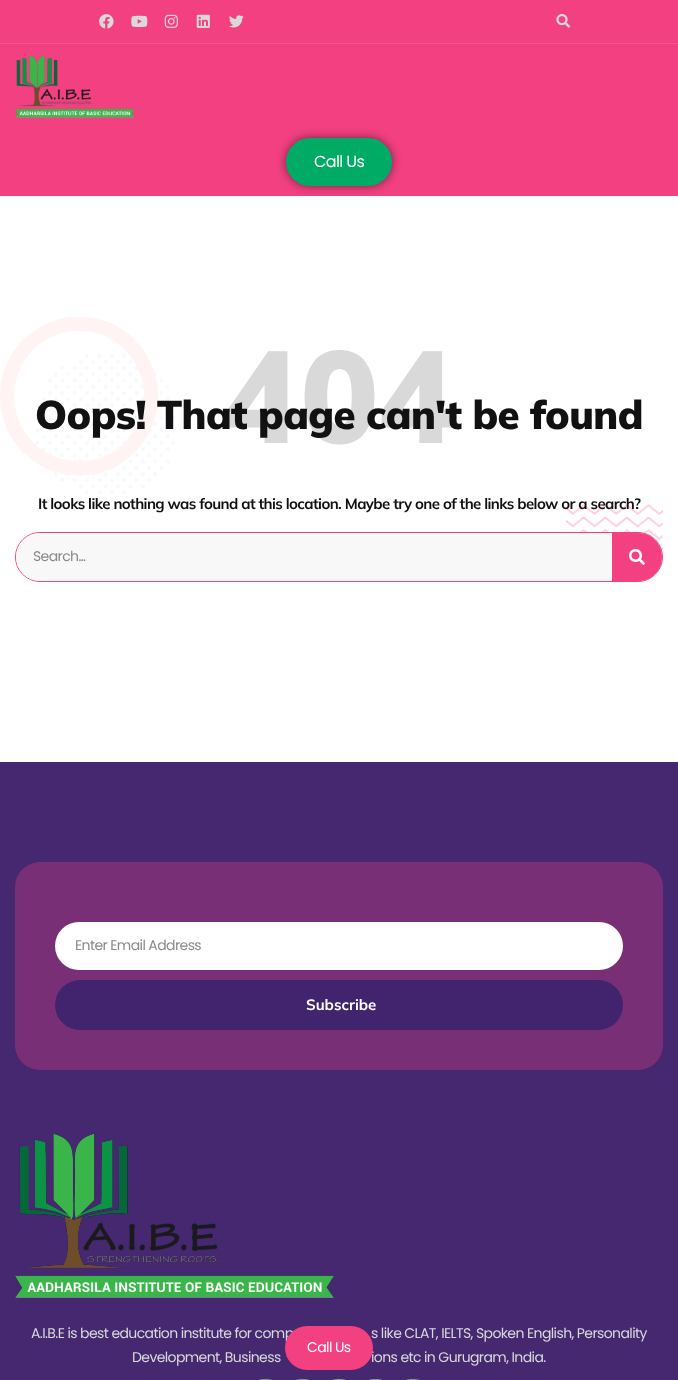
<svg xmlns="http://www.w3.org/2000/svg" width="678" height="1380">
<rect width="100%" height="100%" fill="#fff"/>
<rect width="678" height="43" fill="#f24080"/>
<rect y="43" width="678" height="1" fill="#f3548d"/>
<image x="99" y="14" width="15" height="15" href="media/1.png"/>
<image x="131" y="15" width="17" height="12" href="media/2.png"/>
<image x="164" y="14" width="14" height="14" href="media/3.png"/>
<image x="196" y="14" width="14" height="14" href="media/4.png"/>
<image x="229" y="15" width="15" height="13" href="media/5.png"/>
<image x="556" y="14" width="15" height="14" href="media/6.png"/>
<rect y="44" width="678" height="152" fill="#f24080"/>
<image x="15" y="55" width="120" height="63" href="media/7.png"/>
<rect x="286" y="138" width="106" height="48" rx="24" fill="#00000080" filter="blur(5px)"/>
<rect x="286" y="138" width="106" height="48" rx="24" fill="#00ab66"/>
<text x="314" y="167" style="font-family:Poppins;font-size:16px;letter-spacing:-0.6px;fill:#fff">Call Us</text>
<image x="0" y="317" width="175" height="177" href="media/8.png"/>
<text x="223" y="443" style="font-family:Mulish;font-size:130px;font-weight:900;letter-spacing:-0.6px;fill:#d9d9d9">404</text>
<text x="35" y="429" style="font-family:Mulish;font-size:40px;font-weight:900;letter-spacing:-0.6px;fill:#111">Oops! That page can't be found</text>
<image x="566" y="504" width="97" height="46" href="media/9.png"/>
<text x="38" y="509" style="font-family:Mulish;font-size:15px;font-weight:bold;letter-spacing:-0.6px;fill:#111">It looks like nothing was found at this location. Maybe try one of the links below or a search?</text>
<rect x="15.5" y="532.5" width="647" height="49" rx="24.5" fill="#f8f8f8" stroke="#f24080"/>
<rect x="16" y="533" width="596" height="48" rx="24" fill="#f8f8f8"/>
<text x="33" y="561" style="font-family:Poppins;font-size:14px;letter-spacing:-0.6px;fill:#8a8a8a">Search...</text>
<path d="M612 533h26c13.5 0 24 10.5 24 24c0 13.5-10.5 24-24 24h-26z" fill="#f24080"/>
<image x="629" y="549" width="16" height="16" href="media/10.png"/>
<rect y="762" width="678" height="618" fill="#452870"/>
<rect x="15" y="862" width="648" height="208" rx="25" fill="#792f75"/>
<rect x="55" y="922" width="568" height="48" rx="24" fill="#fff"/>
<text x="75" y="950" style="font-family:Poppins;font-size:14px;letter-spacing:-0.6px;fill:#8a8a8a">Enter Email Address</text>
<rect x="55" y="980" width="568" height="50" rx="25" fill="#41246d"/>
<text x="306" y="1010" style="font-family:Mulish;font-size:15px;font-weight:bold;fill:#fff">Subscribe</text>
<image x="15" y="1133" width="319" height="165" href="media/11.png"/>
<text x="31" y="1338" style="font-family:Poppins;font-size:14px;letter-spacing:-0.6px;fill:#d9d9d9">A.I.B.E is best education institute for comp</text>
<text x="371" y="1338" style="font-family:Poppins;font-size:14px;letter-spacing:-0.6px;fill:#d9d9d9">s like CLAT, IELTS, Spoken English, Personality</text>
<text x="132" y="1362" style="font-family:Poppins;font-size:14px;letter-spacing:-0.6px;fill:#d9d9d9">Development, Business</text>
<text x="371" y="1362" style="font-family:Poppins;font-size:14px;letter-spacing:-0.6px;fill:#d9d9d9">ions etc in Gurugram, India.</text>
<rect x="250.5" y="1379.5" width="30" height="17" rx="15" fill="none" stroke="#a7a7a7"/>
<rect x="287.5" y="1379.5" width="30" height="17" rx="15" fill="none" stroke="#a7a7a7"/>
<rect x="323.5" y="1379.5" width="31" height="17" rx="15.5" fill="none" stroke="#a7a7a7"/>
<rect x="360.5" y="1379.5" width="30" height="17" rx="15" fill="none" stroke="#a7a7a7"/>
<rect x="397.5" y="1379.5" width="30" height="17" rx="15" fill="none" stroke="#a7a7a7"/>
<rect x="285" y="1326" width="88" height="44" rx="22" fill="#f24080"/>
<text x="307" y="1352" style="font-family:Poppins;font-size:14px;letter-spacing:-0.6px;fill:#fff">Call Us</text>
</svg>
